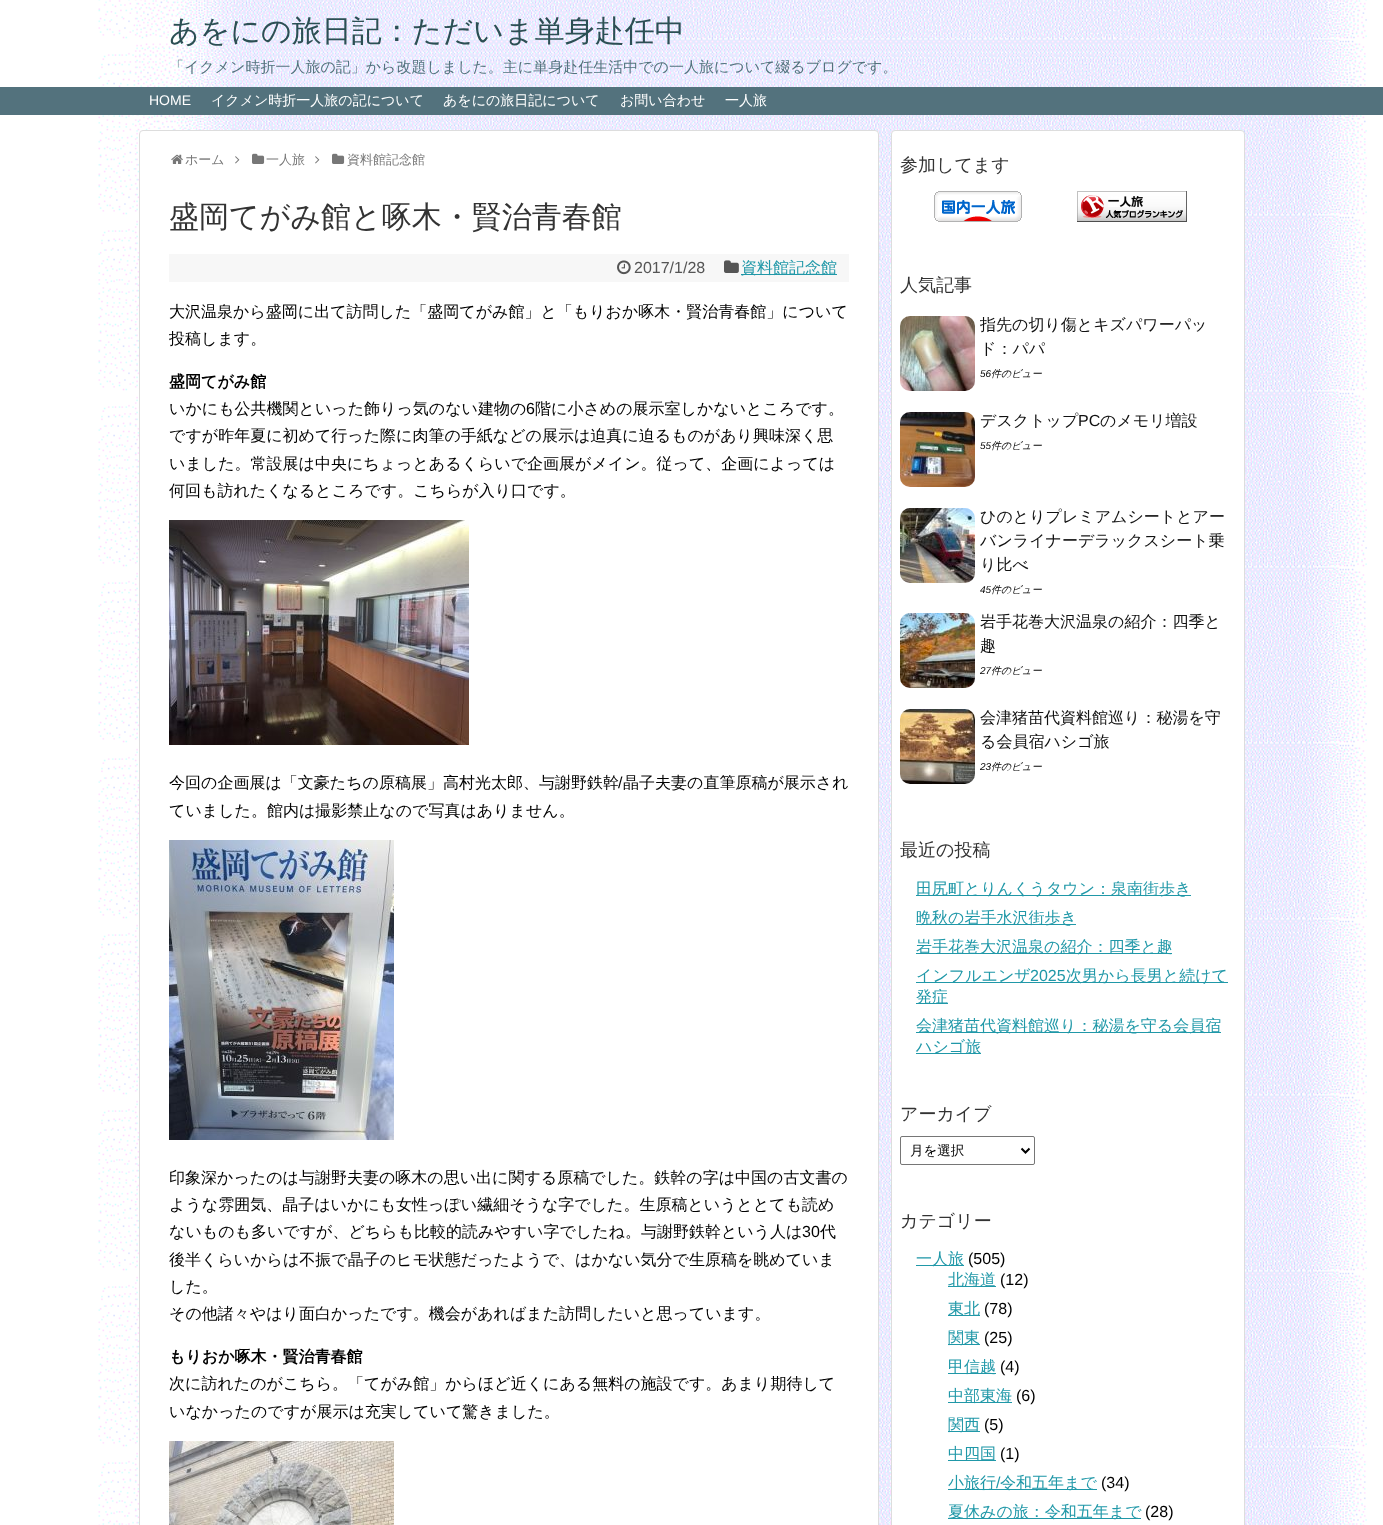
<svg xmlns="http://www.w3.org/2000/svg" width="1383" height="1525">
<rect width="100%" height="100%" fill="#fff"/>
<image x="98" y="0" width="1269" height="1525" href="media/1.png"/>
<text x="169" y="41" style="font-family:WenQuanYi Zen Hei;font-size:30px;font-weight:500;fill:#2c4f54">あをにの旅日記：ただいま単身赴任中</text>
<text x="169" y="72" style="font-family:WenQuanYi Zen Hei;font-size:15px;font-weight:500;fill:#53727d">「イクメン時折一人旅の記」から改題しました。主に単身赴任生活中での一人旅について綴るブログです。</text>
<rect y="87" width="1383" height="28" fill="#53727d"/>
<text x="149" y="105" style="font-family:Liberation Sans;font-size:14px;fill:#fff">HOME</text>
<text x="211" y="105" style="font-family:WenQuanYi Zen Hei;font-size:14px;font-weight:500;fill:#fff">イクメン時折一人旅の記について</text>
<text x="443" y="105" style="font-family:WenQuanYi Zen Hei;font-size:14px;font-weight:500;fill:#fff">あをにの旅日記について</text>
<text x="620" y="105" style="font-family:WenQuanYi Zen Hei;font-size:14px;font-weight:500;fill:#fff">お問い合わせ</text>
<text x="725" y="105" style="font-family:WenQuanYi Zen Hei;font-size:14px;font-weight:500;fill:#fff">一人旅</text>
<rect x="139.5" y="130.5" width="739" height="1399" rx="3.5" fill="#fff" stroke="#ddd"/>
<image x="171" y="154" width="12" height="10" href="media/2.png"/>
<text x="185" y="164" style="font-family:WenQuanYi Zen Hei;font-size:13px;font-weight:500;fill:#777">ホーム</text>
<image x="235" y="156" width="5" height="8" href="media/3.png"/>
<image x="252" y="153" width="13" height="11" href="media/4.png"/>
<text x="266" y="164" style="font-family:WenQuanYi Zen Hei;font-size:13px;font-weight:500;fill:#777">一人旅</text>
<image x="315" y="156" width="5" height="8" href="media/3.png"/>
<image x="332" y="153" width="13" height="11" href="media/4.png"/>
<text x="347" y="164" style="font-family:WenQuanYi Zen Hei;font-size:13px;font-weight:500;fill:#777">資料館記念館</text>
<text x="169" y="227" style="font-family:WenQuanYi Zen Hei;font-size:30px;font-weight:500;fill:#333">盛岡てがみ館と啄木・賢治青春館</text>
<rect x="169" y="254" width="680" height="28" fill="#f7f7f7"/>
<image x="617" y="260" width="14" height="15" href="media/5.png"/>
<text x="634" y="273" style="font-family:Liberation Sans;font-size:16px;fill:#555">2017/1/28</text>
<image x="724" y="260" width="15" height="13" href="media/6.png"/>
<rect x="741" y="274" width="96" height="1" fill="#2098a8"/>
<text x="741" y="273" style="font-family:WenQuanYi Zen Hei;font-size:16px;font-weight:500;fill:#2098a8">資料館記念館</text>
<text x="169" y="317" style="font-family:WenQuanYi Zen Hei;font-size:16px;font-weight:500;fill:#000">大沢温泉から盛岡に出て訪問した「盛岡てがみ館」と「もりおか啄木・賢治青春館」について</text>
<text x="169" y="344" style="font-family:WenQuanYi Zen Hei;font-size:16px;font-weight:500;fill:#000">投稿します。</text>
<text x="169" y="387" style="font-family:WenQuanYi Zen Hei;font-size:16px;font-weight:bold;fill:#000">盛岡てがみ館</text>
<text x="169" y="414" style="font-family:WenQuanYi Zen Hei;font-size:16px;font-weight:500;fill:#000">いかにも公共機関といった飾りっ気のない建物の</text>
<text x="526" y="414" style="font-family:Liberation Sans;font-size:16px;fill:#000">6</text>
<text x="535" y="414" style="font-family:WenQuanYi Zen Hei;font-size:16px;font-weight:500;fill:#000">階に小さめの展示室しかないところです。</text>
<text x="169" y="441" style="font-family:WenQuanYi Zen Hei;font-size:16px;font-weight:500;fill:#000">ですが昨年夏に初めて行った際に肉筆の手紙などの展示は迫真に迫るものがあり興味深く思</text>
<text x="169" y="469" style="font-family:WenQuanYi Zen Hei;font-size:16px;font-weight:500;fill:#000">いました。常設展は中央にちょっとあるくらいで企画展がメイン。従って、企画によっては</text>
<text x="169" y="496" style="font-family:WenQuanYi Zen Hei;font-size:16px;font-weight:500;fill:#000">何回も訪れたくなるところです。こちらが入り口です。</text>
<image x="169" y="520" width="300" height="225" href="media/7.png"/>
<text x="169" y="788" style="font-family:WenQuanYi Zen Hei;font-size:16px;font-weight:500;fill:#000">今回の企画展は「文豪たちの原稿展」高村光太郎、与謝野鉄幹</text>
<text x="618" y="788" style="font-family:Liberation Sans;font-size:16px;fill:#000">/</text>
<text x="623" y="788" style="font-family:WenQuanYi Zen Hei;font-size:16px;font-weight:500;fill:#000">晶子夫妻の直筆原稿が展示され</text>
<text x="169" y="816" style="font-family:WenQuanYi Zen Hei;font-size:16px;font-weight:500;fill:#000">ていました。館内は撮影禁止なので写真はありません。</text>
<image x="169" y="840" width="225" height="300" href="media/8.png"/>
<text x="169" y="1183" style="font-family:WenQuanYi Zen Hei;font-size:16px;font-weight:500;fill:#000">印象深かったのは与謝野夫妻の啄木の思い出に関する原稿でした。鉄幹の字は中国の古文書の</text>
<text x="169" y="1210" style="font-family:WenQuanYi Zen Hei;font-size:16px;font-weight:500;fill:#000">ような雰囲気、晶子はいかにも女性っぽい繊細そうな字でした。生原稿というととても読め</text>
<text x="169" y="1237" style="font-family:WenQuanYi Zen Hei;font-size:16px;font-weight:500;fill:#000">ないものも多いですが、どちらも比較的読みやすい字でしたね。与謝野鉄幹という人は</text>
<text x="802" y="1237" style="font-family:Liberation Sans;font-size:16px;fill:#000">30</text>
<text x="820" y="1237" style="font-family:WenQuanYi Zen Hei;font-size:16px;font-weight:500;fill:#000">代</text>
<text x="169" y="1265" style="font-family:WenQuanYi Zen Hei;font-size:16px;font-weight:500;fill:#000">後半くらいからは不振で晶子のヒモ状態だったようで、はかない気分で生原稿を眺めていま</text>
<text x="169" y="1292" style="font-family:WenQuanYi Zen Hei;font-size:16px;font-weight:500;fill:#000">した。</text>
<text x="169" y="1319" style="font-family:WenQuanYi Zen Hei;font-size:16px;font-weight:500;fill:#000">その他諸々やはり面白かったです。機会があればまた訪問したいと思っています。</text>
<text x="169" y="1362" style="font-family:WenQuanYi Zen Hei;font-size:16px;font-weight:bold;fill:#000">もりおか啄木・賢治青春館</text>
<text x="169" y="1389" style="font-family:WenQuanYi Zen Hei;font-size:16px;font-weight:500;fill:#000">次に訪れたのがこちら。「てがみ館」からほど近くにある無料の施設です。あまり期待して</text>
<text x="169" y="1417" style="font-family:WenQuanYi Zen Hei;font-size:16px;font-weight:500;fill:#000">いなかったのですが展示は充実していて驚きました。</text>
<image x="169" y="1441" width="225" height="84" href="media/9.png"/>
<rect x="891.5" y="130.5" width="353" height="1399" rx="3.5" fill="#fff" stroke="#ddd"/>
<text x="900" y="171" style="font-family:WenQuanYi Zen Hei;font-size:18px;font-weight:500;fill:#333">参加してます</text>
<image x="934" y="191" width="88" height="31" href="media/10.png"/>
<image x="1077" y="191" width="110" height="31" href="media/11.png"/>
<text x="900" y="291" style="font-family:WenQuanYi Zen Hei;font-size:18px;font-weight:500;fill:#333">人気記事</text>
<image x="900" y="316" width="75" height="75" href="media/12.png"/>
<text x="980" y="330" style="font-family:WenQuanYi Zen Hei;font-size:16px;font-weight:500;fill:#111">指先の切り傷とキズパワーパッ</text>
<text x="980" y="354" style="font-family:WenQuanYi Zen Hei;font-size:16px;font-weight:500;fill:#111">ド：パパ</text>
<text x="980" y="377" style="font-family:Liberation Sans;font-size:10px;font-style:italic;fill:#000">56</text>
<text x="991" y="377" style="font-family:WenQuanYi Zen Hei;font-size:10px;font-weight:500;font-style:italic;fill:#000">件のビュー</text>
<image x="900" y="412" width="75" height="75" href="media/13.png"/>
<text x="980" y="426" style="font-family:WenQuanYi Zen Hei;font-size:16px;font-weight:500;fill:#111">デスクトップ</text>
<text x="1078" y="426" style="font-family:Liberation Sans;font-size:16px;fill:#111">PC</text>
<text x="1100" y="426" style="font-family:WenQuanYi Zen Hei;font-size:16px;font-weight:500;fill:#111">のメモリ増設</text>
<text x="980" y="449" style="font-family:Liberation Sans;font-size:10px;font-style:italic;fill:#000">55</text>
<text x="991" y="449" style="font-family:WenQuanYi Zen Hei;font-size:10px;font-weight:500;font-style:italic;fill:#000">件のビュー</text>
<image x="900" y="508" width="75" height="75" href="media/14.png"/>
<text x="980" y="522" style="font-family:WenQuanYi Zen Hei;font-size:16px;font-weight:500;fill:#111">ひのとりプレミアムシートとアー</text>
<text x="980" y="546" style="font-family:WenQuanYi Zen Hei;font-size:16px;font-weight:500;fill:#111">バンライナーデラックスシート乗</text>
<text x="980" y="570" style="font-family:WenQuanYi Zen Hei;font-size:16px;font-weight:500;fill:#111">り比べ</text>
<text x="980" y="593" style="font-family:Liberation Sans;font-size:10px;font-style:italic;fill:#000">45</text>
<text x="991" y="593" style="font-family:WenQuanYi Zen Hei;font-size:10px;font-weight:500;font-style:italic;fill:#000">件のビュー</text>
<image x="900" y="613" width="75" height="75" href="media/15.png"/>
<text x="980" y="627" style="font-family:WenQuanYi Zen Hei;font-size:16px;font-weight:500;fill:#111">岩手花巻大沢温泉の紹介：四季と</text>
<text x="980" y="651" style="font-family:WenQuanYi Zen Hei;font-size:16px;font-weight:500;fill:#111">趣</text>
<text x="980" y="674" style="font-family:Liberation Sans;font-size:10px;font-style:italic;fill:#000">27</text>
<text x="991" y="674" style="font-family:WenQuanYi Zen Hei;font-size:10px;font-weight:500;font-style:italic;fill:#000">件のビュー</text>
<image x="900" y="709" width="75" height="75" href="media/16.png"/>
<text x="980" y="723" style="font-family:WenQuanYi Zen Hei;font-size:16px;font-weight:500;fill:#111">会津猪苗代資料館巡り：秘湯を守</text>
<text x="980" y="747" style="font-family:WenQuanYi Zen Hei;font-size:16px;font-weight:500;fill:#111">る会員宿ハシゴ旅</text>
<text x="980" y="770" style="font-family:Liberation Sans;font-size:10px;font-style:italic;fill:#000">23</text>
<text x="991" y="770" style="font-family:WenQuanYi Zen Hei;font-size:10px;font-weight:500;font-style:italic;fill:#000">件のビュー</text>
<text x="900" y="856" style="font-family:WenQuanYi Zen Hei;font-size:18px;font-weight:500;fill:#333">最近の投稿</text>
<rect x="916" y="895" width="275" height="1" fill="#2098a8"/>
<text x="916" y="894" style="font-family:WenQuanYi Zen Hei;font-size:16px;font-weight:500;fill:#2098a8">田尻町とりんくうタウン：泉南街歩き</text>
<rect x="916" y="924" width="160" height="1" fill="#2098a8"/>
<text x="916" y="923" style="font-family:WenQuanYi Zen Hei;font-size:16px;font-weight:500;fill:#2098a8">晩秋の岩手水沢街歩き</text>
<rect x="916" y="953" width="256" height="1" fill="#2098a8"/>
<text x="916" y="952" style="font-family:WenQuanYi Zen Hei;font-size:16px;font-weight:500;fill:#2098a8">岩手花巻大沢温泉の紹介：四季と趣</text>
<rect x="916" y="982" width="312" height="1" fill="#2098a8"/>
<text x="916" y="981" style="font-family:WenQuanYi Zen Hei;font-size:16px;font-weight:500;fill:#2098a8">インフルエンザ</text>
<text x="1030" y="981" style="font-family:Liberation Sans;font-size:16px;fill:#2098a8">2025</text>
<text x="1066" y="981" style="font-family:WenQuanYi Zen Hei;font-size:16px;font-weight:500;fill:#2098a8">次男から長男と続けて</text>
<rect x="916" y="1003" width="32" height="1" fill="#2098a8"/>
<text x="916" y="1002" style="font-family:WenQuanYi Zen Hei;font-size:16px;font-weight:500;fill:#2098a8">発症</text>
<rect x="916" y="1032" width="305" height="1" fill="#2098a8"/>
<text x="916" y="1031" style="font-family:WenQuanYi Zen Hei;font-size:16px;font-weight:500;fill:#2098a8">会津猪苗代資料館巡り：秘湯を守る会員宿</text>
<rect x="916" y="1053" width="65" height="1" fill="#2098a8"/>
<text x="916" y="1052" style="font-family:WenQuanYi Zen Hei;font-size:16px;font-weight:500;fill:#2098a8">ハシゴ旅</text>
<text x="900" y="1120" style="font-family:WenQuanYi Zen Hei;font-size:18px;font-weight:500;fill:#333">アーカイブ</text>
<rect x="900.5" y="1136.5" width="134" height="28" rx="1.5" fill="none" stroke="#767676"/>
<path d="M1021.5 1148.5l4 4l4-4" fill="none" stroke="#000" stroke-width="2"/>
<text x="910" y="1155" style="font-family:WenQuanYi Zen Hei;font-size:13.5px;font-weight:500;fill:#000">月を選択</text>
<text x="900" y="1227" style="font-family:WenQuanYi Zen Hei;font-size:18px;font-weight:500;fill:#333">カテゴリー</text>
<rect x="916" y="1265" width="48" height="1" fill="#2098a8"/>
<text x="916" y="1264" style="font-family:WenQuanYi Zen Hei;font-size:16px;font-weight:500;fill:#2098a8">一人旅</text>
<text x="968" y="1264" style="font-family:Liberation Sans;font-size:16px;fill:#000">(505)</text>
<rect x="948" y="1286" width="48" height="1" fill="#2098a8"/>
<text x="948" y="1285" style="font-family:WenQuanYi Zen Hei;font-size:16px;font-weight:500;fill:#2098a8">北海道</text>
<text x="1000" y="1285" style="font-family:Liberation Sans;font-size:16px;fill:#000">(12)</text>
<rect x="948" y="1315" width="32" height="1" fill="#2098a8"/>
<text x="948" y="1314" style="font-family:WenQuanYi Zen Hei;font-size:16px;font-weight:500;fill:#2098a8">東北</text>
<text x="984" y="1314" style="font-family:Liberation Sans;font-size:16px;fill:#000">(78)</text>
<rect x="948" y="1344" width="32" height="1" fill="#2098a8"/>
<text x="948" y="1343" style="font-family:WenQuanYi Zen Hei;font-size:16px;font-weight:500;fill:#2098a8">関東</text>
<text x="984" y="1343" style="font-family:Liberation Sans;font-size:16px;fill:#000">(25)</text>
<rect x="948" y="1373" width="48" height="1" fill="#2098a8"/>
<text x="948" y="1372" style="font-family:WenQuanYi Zen Hei;font-size:16px;font-weight:500;fill:#2098a8">甲信越</text>
<text x="1000" y="1372" style="font-family:Liberation Sans;font-size:16px;fill:#000">(4)</text>
<rect x="948" y="1402" width="64" height="1" fill="#2098a8"/>
<text x="948" y="1401" style="font-family:WenQuanYi Zen Hei;font-size:16px;font-weight:500;fill:#2098a8">中部東海</text>
<text x="1016" y="1401" style="font-family:Liberation Sans;font-size:16px;fill:#000">(6)</text>
<rect x="948" y="1431" width="32" height="1" fill="#2098a8"/>
<text x="948" y="1430" style="font-family:WenQuanYi Zen Hei;font-size:16px;font-weight:500;fill:#2098a8">関西</text>
<text x="984" y="1430" style="font-family:Liberation Sans;font-size:16px;fill:#000">(5)</text>
<rect x="948" y="1460" width="48" height="1" fill="#2098a8"/>
<text x="948" y="1459" style="font-family:WenQuanYi Zen Hei;font-size:16px;font-weight:500;fill:#2098a8">中四国</text>
<text x="1000" y="1459" style="font-family:Liberation Sans;font-size:16px;fill:#000">(1)</text>
<rect x="948" y="1489" width="149" height="1" fill="#2098a8"/>
<text x="948" y="1488" style="font-family:WenQuanYi Zen Hei;font-size:16px;font-weight:500;fill:#2098a8">小旅行</text>
<text x="996" y="1488" style="font-family:Liberation Sans;font-size:16px;fill:#2098a8">/</text>
<text x="1000" y="1488" style="font-family:WenQuanYi Zen Hei;font-size:16px;font-weight:500;fill:#2098a8">令和五年まで</text>
<text x="1101" y="1488" style="font-family:Liberation Sans;font-size:16px;fill:#000">(34)</text>
<rect x="948" y="1518" width="193" height="1" fill="#2098a8"/>
<text x="948" y="1517" style="font-family:WenQuanYi Zen Hei;font-size:16px;font-weight:500;fill:#2098a8">夏休みの旅：令和五年まで</text>
<text x="1145" y="1517" style="font-family:Liberation Sans;font-size:16px;fill:#000">(28)</text>
</svg>
